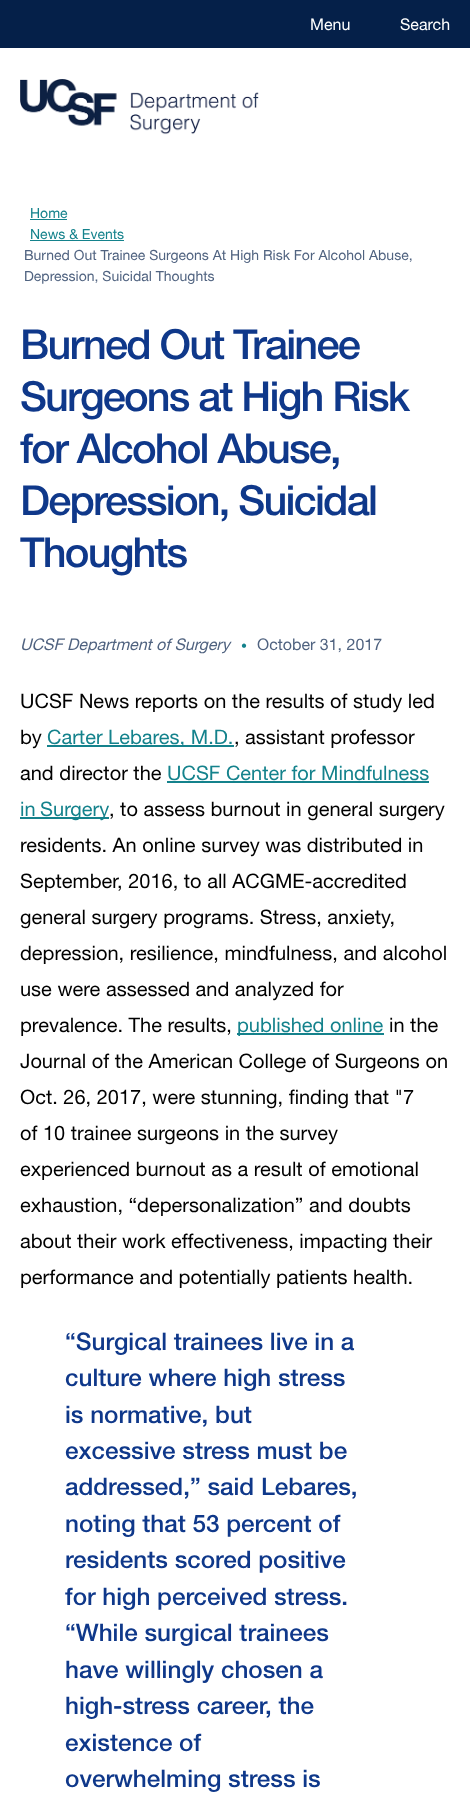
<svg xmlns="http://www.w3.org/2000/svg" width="470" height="1815">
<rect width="100%" height="100%" fill="#fff"/>
<rect width="470" height="48" fill="#052049"/>
<text x="310" y="30" style="font-family:Helvetica Neue;font-size:16px;fill:#fff">Menu</text>
<text x="400" y="30" style="font-family:Helvetica Neue;font-size:16px;fill:#fff">Search</text>
<image x="20" y="79" width="239" height="56" href="media/1.png"/>
<text x="30" y="218" style="font-family:Helvetica Neue;font-size:14px;fill:#14828c">Home</text>
<rect x="30" y="219" width="37" height="1" fill="#14828c"/>
<text x="30" y="239" style="font-family:Helvetica Neue;font-size:14px;fill:#14828c">News &amp; Events</text>
<rect x="30" y="240" width="94" height="1" fill="#14828c"/>
<text x="24" y="260" style="font-family:Helvetica Neue;font-size:14px;fill:#506380">Burned Out Trainee Surgeons At High Risk For Alcohol Abuse,</text>
<text x="24" y="281" style="font-family:Helvetica Neue;font-size:14px;fill:#506380">Depression, Suicidal Thoughts</text>
<text x="20" y="359" style="font-family:Helvetica Neue;font-size:41.5px;font-weight:500;letter-spacing:-1.8px;fill:#0f388a">Burned Out Trainee</text>
<text x="20" y="411" style="font-family:Helvetica Neue;font-size:41.5px;font-weight:500;letter-spacing:-1.8px;fill:#0f388a">Surgeons at High Risk</text>
<text x="20" y="463" style="font-family:Helvetica Neue;font-size:41.5px;font-weight:500;letter-spacing:-1.8px;fill:#0f388a">for Alcohol Abuse,</text>
<text x="20" y="515" style="font-family:Helvetica Neue;font-size:41.5px;font-weight:500;letter-spacing:-1.8px;fill:#0f388a">Depression, Suicidal</text>
<text x="20" y="567" style="font-family:Helvetica Neue;font-size:41.5px;font-weight:500;letter-spacing:-1.8px;fill:#0f388a">Thoughts</text>
<text x="20" y="650" style="font-family:Helvetica Neue;font-size:16px;font-style:italic;fill:#506380">UCSF Department of Surgery</text>
<text x="241" y="650" style="font-family:Helvetica Neue;font-size:12px;fill:#14828c">•</text>
<text x="257" y="650" style="font-family:Helvetica Neue;font-size:16px;fill:#506380">October 31, 2017</text>
<text x="20" y="708" style="font-family:Helvetica Neue;font-size:20px;fill:#000">UCSF News reports on the results of study led</text>
<text x="20" y="744" style="font-family:Helvetica Neue;font-size:20px;fill:#000">by</text>
<rect x="47" y="745" width="187" height="2" fill="#14828c"/>
<text x="47" y="744" style="font-family:Helvetica Neue;font-size:20px;fill:#14828c">Carter Lebares, M.D.</text>
<text x="234" y="744" style="font-family:Helvetica Neue;font-size:20px;fill:#000">, assistant professor</text>
<text x="20" y="780" style="font-family:Helvetica Neue;font-size:20px;fill:#000">and director the</text>
<text x="167" y="780" style="font-family:Helvetica Neue;font-size:20px;fill:#14828c">UCSF Center for Mindfulness</text>
<rect x="167" y="781" width="262" height="2" fill="#14828c"/>
<rect x="20" y="817" width="89" height="2" fill="#14828c"/>
<text x="20" y="816" word-spacing="-1" style="font-family:Helvetica Neue;font-size:20px;fill:#14828c">in Surgery</text>
<text x="109" y="816" style="font-family:Helvetica Neue;font-size:20px;fill:#000">, to assess burnout in general surgery</text>
<text x="20" y="852" style="font-family:Helvetica Neue;font-size:20px;fill:#000">residents. An online survey was distributed in</text>
<text x="20" y="888" style="font-family:Helvetica Neue;font-size:20px;fill:#000">September, 2016, to all ACGME-accredited</text>
<text x="20" y="924" style="font-family:Helvetica Neue;font-size:20px;fill:#000">general surgery programs. Stress, anxiety,</text>
<text x="20" y="960" style="font-family:Helvetica Neue;font-size:20px;fill:#000">depression, resilience, mindfulness, and alcohol</text>
<text x="20" y="996" style="font-family:Helvetica Neue;font-size:20px;fill:#000">use were assessed and analyzed for</text>
<text x="20" y="1032" style="font-family:Helvetica Neue;font-size:20px;fill:#000">prevalence. The results,</text>
<rect x="237" y="1033" width="147" height="2" fill="#14828c"/>
<text x="237" y="1032" style="font-family:Helvetica Neue;font-size:20px;fill:#14828c">published online</text>
<text x="389" y="1032" style="font-family:Helvetica Neue;font-size:20px;fill:#000">in the</text>
<text x="20" y="1068" style="font-family:Helvetica Neue;font-size:20px;fill:#000">Journal of the American College of Surgeons on</text>
<text x="20" y="1104" style="font-family:Helvetica Neue;font-size:20px;fill:#000">Oct. 26, 2017, were stunning, finding that "7</text>
<text x="20" y="1140" style="font-family:Helvetica Neue;font-size:20px;fill:#000">of 10 trainee surgeons in the survey</text>
<text x="20" y="1176" style="font-family:Helvetica Neue;font-size:20px;fill:#000">experienced burnout as a result of emotional</text>
<text x="20" y="1212" style="font-family:Helvetica Neue;font-size:20px;fill:#000">exhaustion, “depersonalization” and doubts</text>
<text x="20" y="1248" style="font-family:Helvetica Neue;font-size:20px;fill:#000">about their work effectiveness, impacting their</text>
<text x="20" y="1284" style="font-family:Helvetica Neue;font-size:20px;fill:#000">performance and potentially patients health.</text>
<text x="65" y="1350" style="font-family:Helvetica Neue;font-size:24.25px;font-weight:500;fill:#0f388a">“Surgical trainees live in a</text>
<text x="65" y="1386" style="font-family:Helvetica Neue;font-size:24.25px;font-weight:500;fill:#0f388a">culture where high stress</text>
<text x="65" y="1423" style="font-family:Helvetica Neue;font-size:24.25px;font-weight:500;fill:#0f388a">is normative, but</text>
<text x="65" y="1459" style="font-family:Helvetica Neue;font-size:24.25px;font-weight:500;fill:#0f388a">excessive stress must be</text>
<text x="65" y="1495" style="font-family:Helvetica Neue;font-size:24.25px;font-weight:500;fill:#0f388a">addressed,” said Lebares,</text>
<text x="65" y="1532" style="font-family:Helvetica Neue;font-size:24.25px;font-weight:500;fill:#0f388a">noting that 53 percent of</text>
<text x="65" y="1568" style="font-family:Helvetica Neue;font-size:24.25px;font-weight:500;fill:#0f388a">residents scored positive</text>
<text x="65" y="1605" style="font-family:Helvetica Neue;font-size:24.25px;font-weight:500;fill:#0f388a">for high perceived stress.</text>
<text x="65" y="1641" style="font-family:Helvetica Neue;font-size:24.25px;font-weight:500;fill:#0f388a">“While surgical trainees</text>
<text x="65" y="1678" style="font-family:Helvetica Neue;font-size:24.25px;font-weight:500;fill:#0f388a">have willingly chosen a</text>
<text x="65" y="1714" style="font-family:Helvetica Neue;font-size:24.25px;font-weight:500;fill:#0f388a">high-stress career, the</text>
<text x="65" y="1751" style="font-family:Helvetica Neue;font-size:24.25px;font-weight:500;fill:#0f388a">existence of</text>
<text x="65" y="1787" style="font-family:Helvetica Neue;font-size:24.25px;font-weight:500;fill:#0f388a">overwhelming stress is</text>
</svg>
